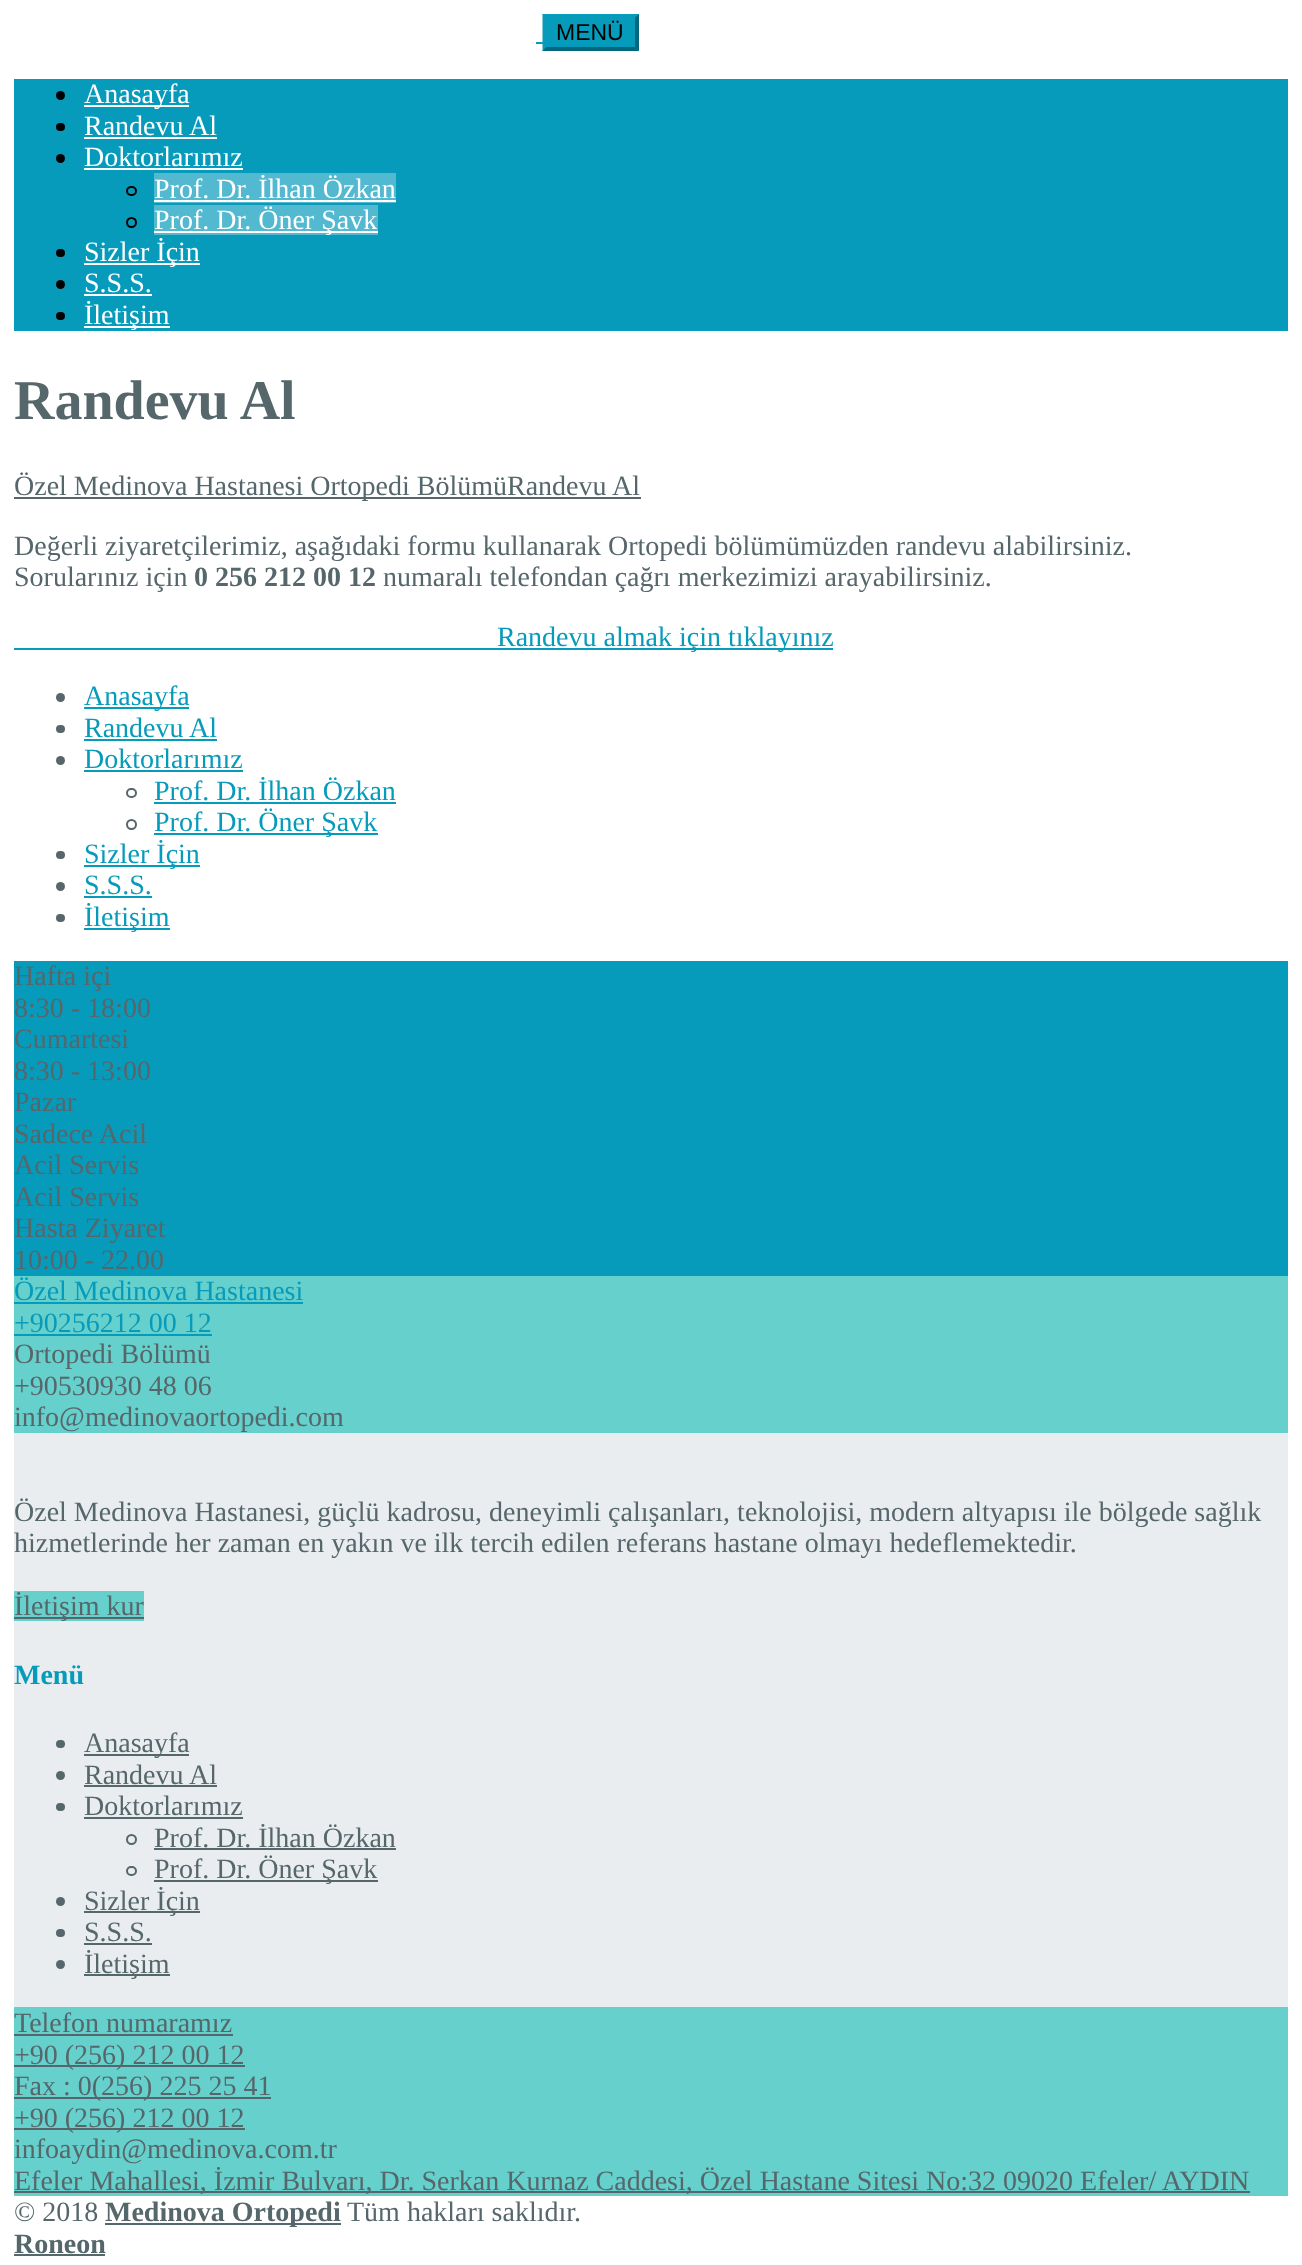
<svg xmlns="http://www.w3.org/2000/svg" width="1302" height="2265">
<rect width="100%" height="100%" fill="#fff"/>
<rect x="543" y="14" width="96" height="37" fill="#079bbb"/>
<path d="M542 14h97l-4 4h-89z" fill="#079bbb"/>
<path d="M639 14v37l-4-4v-29.5z" fill="#05677d"/>
<path d="M639 51h-97l4-4h89z" fill="#05677d"/>
<rect x="536" y="42" width="7" height="2" fill="#079bbb"/>
<path d="M542.5 51v-37l3.5 3.5v29.5z" fill="#079bbb"/>
<text x="556" y="40" style="font-family:Liberation Sans;font-size:23px;fill:#000">MENÜ</text>
<rect x="14" y="79" width="1274" height="252" fill="#079bbb"/>
<circle cx="60.5" cy="95.5" r="4.5" fill="#000"/>
<rect x="84" y="105" width="105" height="2" fill="#fff"/>
<text x="84" y="103" style="font-family:Liberation Serif;font-size:28px;fill:#fff">Anasayfa</text>
<rect x="56" y="123" width="9" height="8" rx="4" fill="#000"/>
<text x="84" y="135" style="font-family:Liberation Serif;font-size:28px;fill:#fff">Randevu Al</text>
<rect x="84" y="137" width="133" height="2" fill="#fff"/>
<circle cx="60.5" cy="158.5" r="4.5" fill="#000"/>
<text x="84" y="166" style="font-family:Liberation Serif;font-size:28px;fill:#fff">Doktorlarımız</text>
<rect x="84" y="168" width="159" height="2" fill="#fff"/>
<rect x="127" y="187" width="9" height="8" rx="4" fill="none" stroke="#000" stroke-width="2"/>
<rect x="154" y="173" width="242" height="30" fill="#52b9d0"/>
<text x="154" y="198" style="font-family:Liberation Serif;font-size:28px;fill:#fff">Prof. Dr. İlhan Özkan</text>
<rect x="154" y="200" width="242" height="2" fill="#fff"/>
<circle cx="131.5" cy="222.5" r="4.5" fill="none" stroke="#000" stroke-width="2"/>
<rect x="154" y="205" width="224" height="30" fill="#52b9d0"/>
<rect x="154" y="231" width="224" height="2" fill="#fff"/>
<text x="154" y="229" style="font-family:Liberation Serif;font-size:28px;fill:#fff">Prof. Dr. Öner Şavk</text>
<rect x="56" y="249" width="9" height="8" rx="4" fill="#000"/>
<rect x="84" y="263" width="116" height="2" fill="#fff"/>
<text x="84" y="261" style="font-family:Liberation Serif;font-size:28px;fill:#fff">Sizler İçin</text>
<circle cx="60.5" cy="284.5" r="4.5" fill="#000"/>
<text x="84" y="292" style="font-family:Liberation Serif;font-size:28px;fill:#fff">S.S.S.</text>
<rect x="84" y="294" width="68" height="2" fill="#fff"/>
<rect x="56" y="312" width="9" height="8" rx="4" fill="#000"/>
<rect x="84" y="326" width="86" height="2" fill="#fff"/>
<text x="84" y="324" style="font-family:Liberation Serif;font-size:28px;fill:#fff">İletişim</text>
<text x="14" y="419" style="font-family:Liberation Serif;font-size:56px;font-weight:bold;fill:#56676b">Randevu Al</text>
<rect x="14" y="497" width="627" height="2" fill="#56676b"/>
<text x="14" y="495" style="font-family:Liberation Serif;font-size:28px;fill:#56676b">Özel Medinova Hastanesi Ortopedi BölümüRandevu Al</text>
<text x="14" y="555" style="font-family:Liberation Serif;font-size:28px;fill:#56676b">Değerli ziyaretçilerimiz, aşağıdaki formu kullanarak Ortopedi bölümümüzden randevu alabilirsiniz.</text>
<text x="14" y="586" style="font-family:Liberation Serif;font-size:28px;fill:#56676b">Sorularınız için</text>
<text x="194" y="586" style="font-family:Liberation Serif;font-size:28px;font-weight:bold;fill:#56676b">0 256 212 00 12</text>
<text x="383" y="586" style="font-family:Liberation Serif;font-size:28px;fill:#56676b">numaralı telefondan çağrı merkezimizi arayabilirsiniz.</text>
<rect x="14" y="648" width="819" height="2" fill="#079bbb"/>
<text x="497" y="646" style="font-family:Liberation Serif;font-size:28px;fill:#079bbb">Randevu almak için tıklayınız</text>
<circle cx="60.5" cy="697.5" r="4.5" fill="#56676b"/>
<rect x="84" y="707" width="105" height="2" fill="#079bbb"/>
<text x="84" y="705" style="font-family:Liberation Serif;font-size:28px;fill:#079bbb">Anasayfa</text>
<rect x="56" y="725" width="9" height="8" rx="4" fill="#56676b"/>
<text x="84" y="737" style="font-family:Liberation Serif;font-size:28px;fill:#079bbb">Randevu Al</text>
<rect x="84" y="739" width="133" height="2" fill="#079bbb"/>
<circle cx="60.5" cy="760.5" r="4.5" fill="#56676b"/>
<text x="84" y="768" style="font-family:Liberation Serif;font-size:28px;fill:#079bbb">Doktorlarımız</text>
<rect x="84" y="770" width="159" height="2" fill="#079bbb"/>
<rect x="127" y="789" width="9" height="8" rx="4" fill="none" stroke="#56676b" stroke-width="2"/>
<text x="154" y="800" style="font-family:Liberation Serif;font-size:28px;fill:#079bbb">Prof. Dr. İlhan Özkan</text>
<rect x="154" y="802" width="242" height="2" fill="#079bbb"/>
<circle cx="131.5" cy="824.5" r="4.5" fill="none" stroke="#56676b" stroke-width="2"/>
<rect x="154" y="833" width="224" height="2" fill="#079bbb"/>
<text x="154" y="831" style="font-family:Liberation Serif;font-size:28px;fill:#079bbb">Prof. Dr. Öner Şavk</text>
<rect x="56" y="851" width="9" height="8" rx="4" fill="#56676b"/>
<rect x="84" y="865" width="116" height="2" fill="#079bbb"/>
<text x="84" y="863" style="font-family:Liberation Serif;font-size:28px;fill:#079bbb">Sizler İçin</text>
<circle cx="60.5" cy="886.5" r="4.5" fill="#56676b"/>
<text x="84" y="894" style="font-family:Liberation Serif;font-size:28px;fill:#079bbb">S.S.S.</text>
<rect x="84" y="896" width="68" height="2" fill="#079bbb"/>
<rect x="56" y="914" width="9" height="8" rx="4" fill="#56676b"/>
<rect x="84" y="928" width="86" height="2" fill="#079bbb"/>
<text x="84" y="926" style="font-family:Liberation Serif;font-size:28px;fill:#079bbb">İletişim</text>
<rect x="14" y="961" width="1274" height="315" fill="#079bbb"/>
<text x="14" y="985" style="font-family:Liberation Serif;font-size:28px;fill:#56676b">Hafta içi</text>
<text x="14" y="1017" style="font-family:Liberation Serif;font-size:28px;fill:#56676b">8:30 - 18:00</text>
<text x="14" y="1048" style="font-family:Liberation Serif;font-size:28px;fill:#56676b">Cumartesi</text>
<text x="14" y="1080" style="font-family:Liberation Serif;font-size:28px;fill:#56676b">8:30 - 13:00</text>
<text x="14" y="1111" style="font-family:Liberation Serif;font-size:28px;fill:#56676b">Pazar</text>
<text x="14" y="1143" style="font-family:Liberation Serif;font-size:28px;fill:#56676b">Sadece Acil</text>
<text x="14" y="1174" style="font-family:Liberation Serif;font-size:28px;fill:#56676b">Acil Servis</text>
<text x="14" y="1206" style="font-family:Liberation Serif;font-size:28px;fill:#56676b">Acil Servis</text>
<text x="14" y="1237" style="font-family:Liberation Serif;font-size:28px;fill:#56676b">Hasta Ziyaret</text>
<text x="14" y="1269" style="font-family:Liberation Serif;font-size:28px;fill:#56676b">10:00 - 22.00</text>
<rect x="14" y="1276" width="1274" height="157" fill="#66d0cc"/>
<text x="14" y="1300" style="font-family:Liberation Serif;font-size:28px;fill:#079bbb">Özel Medinova Hastanesi</text>
<rect x="14" y="1302" width="289" height="2" fill="#079bbb"/>
<text x="14" y="1332" style="font-family:Liberation Serif;font-size:28px;fill:#079bbb">+90256212 00 12</text>
<rect x="14" y="1334" width="198" height="2" fill="#079bbb"/>
<text x="14" y="1363" style="font-family:Liberation Serif;font-size:28px;fill:#56676b">Ortopedi Bölümü</text>
<text x="14" y="1395" style="font-family:Liberation Serif;font-size:28px;fill:#56676b">+90530930 48 06</text>
<text x="14" y="1426" style="font-family:Liberation Serif;font-size:28px;fill:#56676b">info@medinovaortopedi.com</text>
<rect x="14" y="1433" width="1274" height="574" fill="#e9edf0"/>
<text x="14" y="1521" style="font-family:Liberation Serif;font-size:28px;fill:#56676b">Özel Medinova Hastanesi, güçlü kadrosu, deneyimli çalışanları, teknolojisi, modern altyapısı ile bölgede sağlık</text>
<text x="14" y="1552" style="font-family:Liberation Serif;font-size:28px;fill:#56676b">hizmetlerinde her zaman en yakın ve ilk tercih edilen referans hastane olmayı hedeflemektedir.</text>
<rect x="14" y="1591" width="130" height="30" fill="#66d0cc"/>
<rect x="14" y="1617" width="130" height="2" fill="#56676b"/>
<text x="14" y="1615" style="font-family:Liberation Serif;font-size:28px;fill:#56676b">İletişim kur</text>
<text x="14" y="1684" style="font-family:Liberation Serif;font-size:28px;font-weight:bold;fill:#079bbb">Menü</text>
<rect x="56" y="1740" width="9" height="8" rx="4" fill="#56676b"/>
<rect x="84" y="1754" width="105" height="2" fill="#56676b"/>
<text x="84" y="1752" style="font-family:Liberation Serif;font-size:28px;fill:#56676b">Anasayfa</text>
<circle cx="60.5" cy="1775.5" r="4.5" fill="#56676b"/>
<text x="84" y="1784" style="font-family:Liberation Serif;font-size:28px;fill:#56676b">Randevu Al</text>
<rect x="84" y="1785" width="133" height="2" fill="#56676b"/>
<rect x="56" y="1803" width="9" height="8" rx="4" fill="#56676b"/>
<text x="84" y="1815" style="font-family:Liberation Serif;font-size:28px;fill:#56676b">Doktorlarımız</text>
<rect x="84" y="1817" width="159" height="2" fill="#56676b"/>
<circle cx="131.5" cy="1839.5" r="4.5" fill="none" stroke="#56676b" stroke-width="2"/>
<text x="154" y="1847" style="font-family:Liberation Serif;font-size:28px;fill:#56676b">Prof. Dr. İlhan Özkan</text>
<rect x="154" y="1848" width="242" height="2" fill="#56676b"/>
<rect x="127" y="1867" width="9" height="8" rx="4" fill="none" stroke="#56676b" stroke-width="2"/>
<rect x="154" y="1880" width="224" height="2" fill="#56676b"/>
<text x="154" y="1878" style="font-family:Liberation Serif;font-size:28px;fill:#56676b">Prof. Dr. Öner Şavk</text>
<circle cx="60.5" cy="1901.5" r="4.5" fill="#56676b"/>
<rect x="84" y="1911" width="116" height="2" fill="#56676b"/>
<text x="84" y="1910" style="font-family:Liberation Serif;font-size:28px;fill:#56676b">Sizler İçin</text>
<rect x="56" y="1929" width="9" height="8" rx="4" fill="#56676b"/>
<text x="84" y="1941" style="font-family:Liberation Serif;font-size:28px;fill:#56676b">S.S.S.</text>
<rect x="84" y="1943" width="68" height="2" fill="#56676b"/>
<circle cx="60.5" cy="1964.5" r="4.5" fill="#56676b"/>
<rect x="84" y="1974" width="86" height="2" fill="#56676b"/>
<text x="84" y="1973" style="font-family:Liberation Serif;font-size:28px;fill:#56676b">İletişim</text>
<rect x="14" y="2007" width="1274" height="189" fill="#66d0cc"/>
<text x="14" y="2032" style="font-family:Liberation Serif;font-size:28px;fill:#56676b">Telefon numaramız</text>
<rect x="14" y="2034" width="219" height="2" fill="#56676b"/>
<rect x="14" y="2065" width="231" height="2" fill="#56676b"/>
<text x="14" y="2064" style="font-family:Liberation Serif;font-size:28px;fill:#56676b">+90 (256) 212 00 12</text>
<rect x="14" y="2097" width="257" height="2" fill="#56676b"/>
<text x="14" y="2095" style="font-family:Liberation Serif;font-size:28px;fill:#56676b">Fax : 0(256) 225 25 41</text>
<rect x="14" y="2128" width="231" height="2" fill="#56676b"/>
<text x="14" y="2127" style="font-family:Liberation Serif;font-size:28px;fill:#56676b">+90 (256) 212 00 12</text>
<text x="14" y="2158" style="font-family:Liberation Serif;font-size:28px;fill:#56676b">infoaydin@medinova.com.tr</text>
<rect x="14" y="2191" width="1236" height="2" fill="#56676b"/>
<text x="14" y="2190" style="font-family:Liberation Serif;font-size:28px;fill:#56676b">Efeler Mahallesi, İzmir Bulvarı, Dr. Serkan Kurnaz Caddesi, Özel Hastane Sitesi No:32 09020 Efeler/ AYDIN</text>
<text x="14" y="2221" style="font-family:Liberation Serif;font-size:28px;fill:#56676b">© 2018</text>
<rect x="105" y="2223" width="236" height="2" fill="#56676b"/>
<text x="105" y="2221" style="font-family:Liberation Serif;font-size:28px;font-weight:bold;fill:#56676b">Medinova Ortopedi</text>
<text x="347" y="2221" style="font-family:Liberation Serif;font-size:28px;fill:#56676b">Tüm hakları saklıdır.</text>
<text x="14" y="2253" style="font-family:Liberation Serif;font-size:28px;font-weight:bold;fill:#56676b">Roneon</text>
<rect x="14" y="2254" width="91" height="2" fill="#56676b"/>
</svg>
